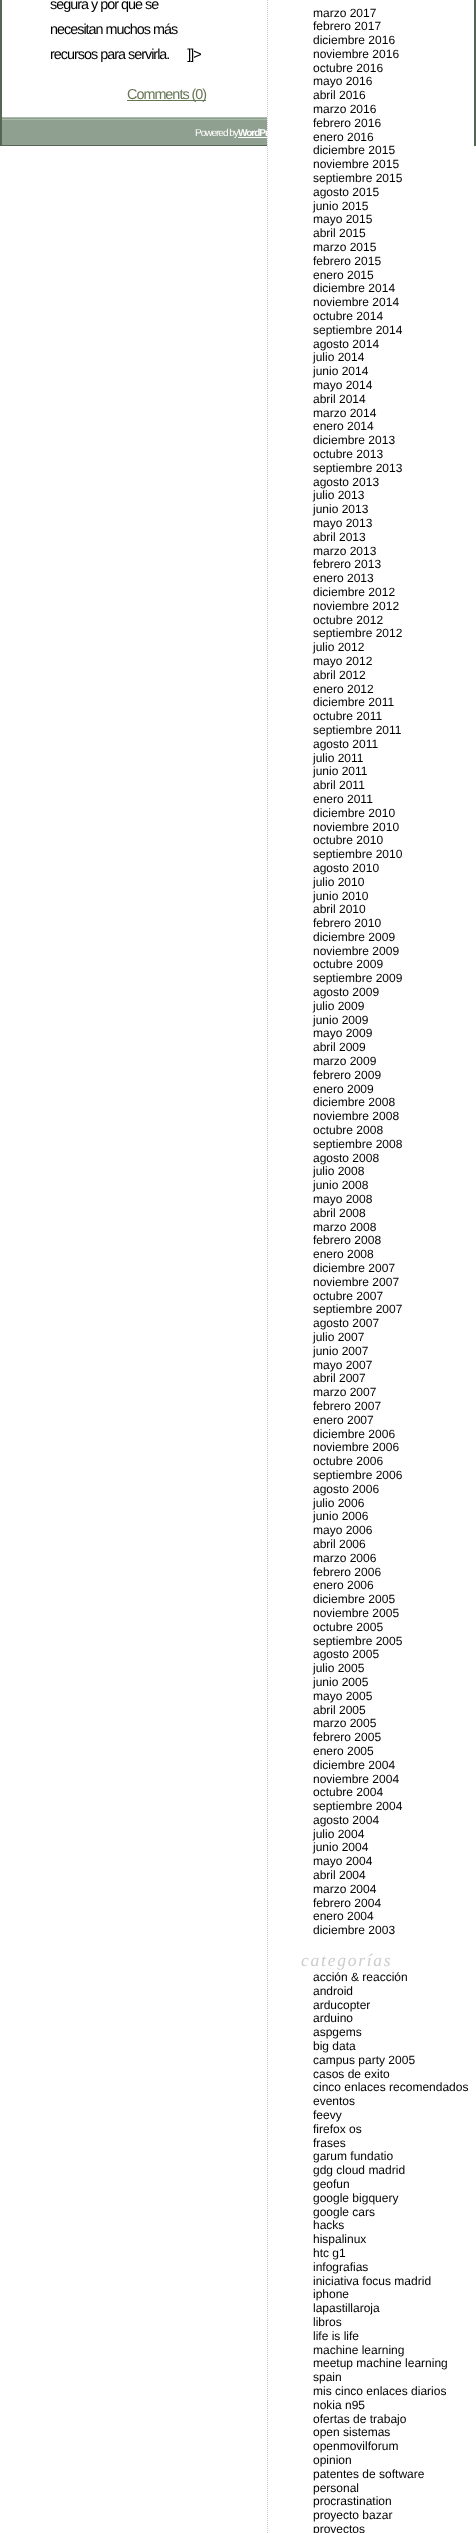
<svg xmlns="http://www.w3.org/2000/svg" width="476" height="2533">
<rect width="100%" height="100%" fill="#fff"/>
<rect x="474" width="2" height="146" fill="#565"/>
<rect y="145" width="476" height="1" fill="#565"/>
<rect width="2" height="146" fill="#565"/>
<text x="50" y="9" style="font-family:Liberation Sans;font-size:14.4px;letter-spacing:-1px;fill:#000">segura y por que se</text>
<text x="50" y="34" style="font-family:Liberation Sans;font-size:14.4px;letter-spacing:-1px;fill:#000">necesitan muchos más</text>
<text x="50" y="59" style="font-family:Liberation Sans;font-size:14.4px;letter-spacing:-1px;fill:#000" xml:space="preserve">recursos para servirla.      ]]&gt;</text>
<rect x="127" y="100" width="79" height="1" fill="#675"/>
<text x="127" y="99" style="font-family:Liberation Sans;font-size:14.4px;letter-spacing:-1px;fill:#675">Comments (0)</text>
<rect x="2" y="118" width="265" height="27" fill="#90a090"/>
<rect x="2" y="117" width="265" height="1" fill="#aba"/>
<rect x="2" y="119" width="265" height="1" fill="#aba"/>
<text x="195" y="136" style="font-family:Liberation Sans;font-size:10px;letter-spacing:-1px;fill:#fff">Powered by</text>
<rect x="238" y="137" width="29" height="1" fill="#fff"/>
<text x="238" y="136" style="font-family:Liberation Sans;font-size:10px;font-weight:bold;letter-spacing:-1px;fill:#fff">WordPr</text>
<rect x="267" y="145" width="207" height="1" fill="#fff"/>
<path d="M267.5-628v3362" fill="none" stroke="#ccc" stroke-dasharray="1 1"/>
<text x="313" y="17" style="font-family:Liberation Sans;font-size:12px;fill:#000">marzo 2017</text>
<text x="313" y="30" style="font-family:Liberation Sans;font-size:12px;fill:#000">febrero 2017</text>
<text x="313" y="44" style="font-family:Liberation Sans;font-size:12px;fill:#000">diciembre 2016</text>
<text x="313" y="58" style="font-family:Liberation Sans;font-size:12px;fill:#000">noviembre 2016</text>
<text x="313" y="72" style="font-family:Liberation Sans;font-size:12px;fill:#000">octubre 2016</text>
<text x="313" y="85" style="font-family:Liberation Sans;font-size:12px;fill:#000">mayo 2016</text>
<text x="313" y="99" style="font-family:Liberation Sans;font-size:12px;fill:#000">abril 2016</text>
<text x="313" y="113" style="font-family:Liberation Sans;font-size:12px;fill:#000">marzo 2016</text>
<text x="313" y="127" style="font-family:Liberation Sans;font-size:12px;fill:#000">febrero 2016</text>
<text x="313" y="141" style="font-family:Liberation Sans;font-size:12px;fill:#000">enero 2016</text>
<text x="313" y="154" style="font-family:Liberation Sans;font-size:12px;fill:#000">diciembre 2015</text>
<text x="313" y="168" style="font-family:Liberation Sans;font-size:12px;fill:#000">noviembre 2015</text>
<text x="313" y="182" style="font-family:Liberation Sans;font-size:12px;fill:#000">septiembre 2015</text>
<text x="313" y="196" style="font-family:Liberation Sans;font-size:12px;fill:#000">agosto 2015</text>
<text x="313" y="210" style="font-family:Liberation Sans;font-size:12px;fill:#000">junio 2015</text>
<text x="313" y="223" style="font-family:Liberation Sans;font-size:12px;fill:#000">mayo 2015</text>
<text x="313" y="237" style="font-family:Liberation Sans;font-size:12px;fill:#000">abril 2015</text>
<text x="313" y="251" style="font-family:Liberation Sans;font-size:12px;fill:#000">marzo 2015</text>
<text x="313" y="265" style="font-family:Liberation Sans;font-size:12px;fill:#000">febrero 2015</text>
<text x="313" y="279" style="font-family:Liberation Sans;font-size:12px;fill:#000">enero 2015</text>
<text x="313" y="292" style="font-family:Liberation Sans;font-size:12px;fill:#000">diciembre 2014</text>
<text x="313" y="306" style="font-family:Liberation Sans;font-size:12px;fill:#000">noviembre 2014</text>
<text x="313" y="320" style="font-family:Liberation Sans;font-size:12px;fill:#000">octubre 2014</text>
<text x="313" y="334" style="font-family:Liberation Sans;font-size:12px;fill:#000">septiembre 2014</text>
<text x="313" y="348" style="font-family:Liberation Sans;font-size:12px;fill:#000">agosto 2014</text>
<text x="313" y="361" style="font-family:Liberation Sans;font-size:12px;fill:#000">julio 2014</text>
<text x="313" y="375" style="font-family:Liberation Sans;font-size:12px;fill:#000">junio 2014</text>
<text x="313" y="389" style="font-family:Liberation Sans;font-size:12px;fill:#000">mayo 2014</text>
<text x="313" y="403" style="font-family:Liberation Sans;font-size:12px;fill:#000">abril 2014</text>
<text x="313" y="417" style="font-family:Liberation Sans;font-size:12px;fill:#000">marzo 2014</text>
<text x="313" y="430" style="font-family:Liberation Sans;font-size:12px;fill:#000">enero 2014</text>
<text x="313" y="444" style="font-family:Liberation Sans;font-size:12px;fill:#000">diciembre 2013</text>
<text x="313" y="458" style="font-family:Liberation Sans;font-size:12px;fill:#000">octubre 2013</text>
<text x="313" y="472" style="font-family:Liberation Sans;font-size:12px;fill:#000">septiembre 2013</text>
<text x="313" y="486" style="font-family:Liberation Sans;font-size:12px;fill:#000">agosto 2013</text>
<text x="313" y="499" style="font-family:Liberation Sans;font-size:12px;fill:#000">julio 2013</text>
<text x="313" y="513" style="font-family:Liberation Sans;font-size:12px;fill:#000">junio 2013</text>
<text x="313" y="527" style="font-family:Liberation Sans;font-size:12px;fill:#000">mayo 2013</text>
<text x="313" y="541" style="font-family:Liberation Sans;font-size:12px;fill:#000">abril 2013</text>
<text x="313" y="555" style="font-family:Liberation Sans;font-size:12px;fill:#000">marzo 2013</text>
<text x="313" y="568" style="font-family:Liberation Sans;font-size:12px;fill:#000">febrero 2013</text>
<text x="313" y="582" style="font-family:Liberation Sans;font-size:12px;fill:#000">enero 2013</text>
<text x="313" y="596" style="font-family:Liberation Sans;font-size:12px;fill:#000">diciembre 2012</text>
<text x="313" y="610" style="font-family:Liberation Sans;font-size:12px;fill:#000">noviembre 2012</text>
<text x="313" y="624" style="font-family:Liberation Sans;font-size:12px;fill:#000">octubre 2012</text>
<text x="313" y="637" style="font-family:Liberation Sans;font-size:12px;fill:#000">septiembre 2012</text>
<text x="313" y="651" style="font-family:Liberation Sans;font-size:12px;fill:#000">julio 2012</text>
<text x="313" y="665" style="font-family:Liberation Sans;font-size:12px;fill:#000">mayo 2012</text>
<text x="313" y="679" style="font-family:Liberation Sans;font-size:12px;fill:#000">abril 2012</text>
<text x="313" y="693" style="font-family:Liberation Sans;font-size:12px;fill:#000">enero 2012</text>
<text x="313" y="706" style="font-family:Liberation Sans;font-size:12px;fill:#000">diciembre 2011</text>
<text x="313" y="720" style="font-family:Liberation Sans;font-size:12px;fill:#000">octubre 2011</text>
<text x="313" y="734" style="font-family:Liberation Sans;font-size:12px;fill:#000">septiembre 2011</text>
<text x="313" y="748" style="font-family:Liberation Sans;font-size:12px;fill:#000">agosto 2011</text>
<text x="313" y="762" style="font-family:Liberation Sans;font-size:12px;fill:#000">julio 2011</text>
<text x="313" y="775" style="font-family:Liberation Sans;font-size:12px;fill:#000">junio 2011</text>
<text x="313" y="789" style="font-family:Liberation Sans;font-size:12px;fill:#000">abril 2011</text>
<text x="313" y="803" style="font-family:Liberation Sans;font-size:12px;fill:#000">enero 2011</text>
<text x="313" y="817" style="font-family:Liberation Sans;font-size:12px;fill:#000">diciembre 2010</text>
<text x="313" y="831" style="font-family:Liberation Sans;font-size:12px;fill:#000">noviembre 2010</text>
<text x="313" y="844" style="font-family:Liberation Sans;font-size:12px;fill:#000">octubre 2010</text>
<text x="313" y="858" style="font-family:Liberation Sans;font-size:12px;fill:#000">septiembre 2010</text>
<text x="313" y="872" style="font-family:Liberation Sans;font-size:12px;fill:#000">agosto 2010</text>
<text x="313" y="886" style="font-family:Liberation Sans;font-size:12px;fill:#000">julio 2010</text>
<text x="313" y="900" style="font-family:Liberation Sans;font-size:12px;fill:#000">junio 2010</text>
<text x="313" y="913" style="font-family:Liberation Sans;font-size:12px;fill:#000">abril 2010</text>
<text x="313" y="927" style="font-family:Liberation Sans;font-size:12px;fill:#000">febrero 2010</text>
<text x="313" y="941" style="font-family:Liberation Sans;font-size:12px;fill:#000">diciembre 2009</text>
<text x="313" y="955" style="font-family:Liberation Sans;font-size:12px;fill:#000">noviembre 2009</text>
<text x="313" y="968" style="font-family:Liberation Sans;font-size:12px;fill:#000">octubre 2009</text>
<text x="313" y="982" style="font-family:Liberation Sans;font-size:12px;fill:#000">septiembre 2009</text>
<text x="313" y="996" style="font-family:Liberation Sans;font-size:12px;fill:#000">agosto 2009</text>
<text x="313" y="1010" style="font-family:Liberation Sans;font-size:12px;fill:#000">julio 2009</text>
<text x="313" y="1024" style="font-family:Liberation Sans;font-size:12px;fill:#000">junio 2009</text>
<text x="313" y="1037" style="font-family:Liberation Sans;font-size:12px;fill:#000">mayo 2009</text>
<text x="313" y="1051" style="font-family:Liberation Sans;font-size:12px;fill:#000">abril 2009</text>
<text x="313" y="1065" style="font-family:Liberation Sans;font-size:12px;fill:#000">marzo 2009</text>
<text x="313" y="1079" style="font-family:Liberation Sans;font-size:12px;fill:#000">febrero 2009</text>
<text x="313" y="1093" style="font-family:Liberation Sans;font-size:12px;fill:#000">enero 2009</text>
<text x="313" y="1106" style="font-family:Liberation Sans;font-size:12px;fill:#000">diciembre 2008</text>
<text x="313" y="1120" style="font-family:Liberation Sans;font-size:12px;fill:#000">noviembre 2008</text>
<text x="313" y="1134" style="font-family:Liberation Sans;font-size:12px;fill:#000">octubre 2008</text>
<text x="313" y="1148" style="font-family:Liberation Sans;font-size:12px;fill:#000">septiembre 2008</text>
<text x="313" y="1162" style="font-family:Liberation Sans;font-size:12px;fill:#000">agosto 2008</text>
<text x="313" y="1175" style="font-family:Liberation Sans;font-size:12px;fill:#000">julio 2008</text>
<text x="313" y="1189" style="font-family:Liberation Sans;font-size:12px;fill:#000">junio 2008</text>
<text x="313" y="1203" style="font-family:Liberation Sans;font-size:12px;fill:#000">mayo 2008</text>
<text x="313" y="1217" style="font-family:Liberation Sans;font-size:12px;fill:#000">abril 2008</text>
<text x="313" y="1231" style="font-family:Liberation Sans;font-size:12px;fill:#000">marzo 2008</text>
<text x="313" y="1244" style="font-family:Liberation Sans;font-size:12px;fill:#000">febrero 2008</text>
<text x="313" y="1258" style="font-family:Liberation Sans;font-size:12px;fill:#000">enero 2008</text>
<text x="313" y="1272" style="font-family:Liberation Sans;font-size:12px;fill:#000">diciembre 2007</text>
<text x="313" y="1286" style="font-family:Liberation Sans;font-size:12px;fill:#000">noviembre 2007</text>
<text x="313" y="1300" style="font-family:Liberation Sans;font-size:12px;fill:#000">octubre 2007</text>
<text x="313" y="1313" style="font-family:Liberation Sans;font-size:12px;fill:#000">septiembre 2007</text>
<text x="313" y="1327" style="font-family:Liberation Sans;font-size:12px;fill:#000">agosto 2007</text>
<text x="313" y="1341" style="font-family:Liberation Sans;font-size:12px;fill:#000">julio 2007</text>
<text x="313" y="1355" style="font-family:Liberation Sans;font-size:12px;fill:#000">junio 2007</text>
<text x="313" y="1369" style="font-family:Liberation Sans;font-size:12px;fill:#000">mayo 2007</text>
<text x="313" y="1382" style="font-family:Liberation Sans;font-size:12px;fill:#000">abril 2007</text>
<text x="313" y="1396" style="font-family:Liberation Sans;font-size:12px;fill:#000">marzo 2007</text>
<text x="313" y="1410" style="font-family:Liberation Sans;font-size:12px;fill:#000">febrero 2007</text>
<text x="313" y="1424" style="font-family:Liberation Sans;font-size:12px;fill:#000">enero 2007</text>
<text x="313" y="1438" style="font-family:Liberation Sans;font-size:12px;fill:#000">diciembre 2006</text>
<text x="313" y="1451" style="font-family:Liberation Sans;font-size:12px;fill:#000">noviembre 2006</text>
<text x="313" y="1465" style="font-family:Liberation Sans;font-size:12px;fill:#000">octubre 2006</text>
<text x="313" y="1479" style="font-family:Liberation Sans;font-size:12px;fill:#000">septiembre 2006</text>
<text x="313" y="1493" style="font-family:Liberation Sans;font-size:12px;fill:#000">agosto 2006</text>
<text x="313" y="1507" style="font-family:Liberation Sans;font-size:12px;fill:#000">julio 2006</text>
<text x="313" y="1520" style="font-family:Liberation Sans;font-size:12px;fill:#000">junio 2006</text>
<text x="313" y="1534" style="font-family:Liberation Sans;font-size:12px;fill:#000">mayo 2006</text>
<text x="313" y="1548" style="font-family:Liberation Sans;font-size:12px;fill:#000">abril 2006</text>
<text x="313" y="1562" style="font-family:Liberation Sans;font-size:12px;fill:#000">marzo 2006</text>
<text x="313" y="1576" style="font-family:Liberation Sans;font-size:12px;fill:#000">febrero 2006</text>
<text x="313" y="1589" style="font-family:Liberation Sans;font-size:12px;fill:#000">enero 2006</text>
<text x="313" y="1603" style="font-family:Liberation Sans;font-size:12px;fill:#000">diciembre 2005</text>
<text x="313" y="1617" style="font-family:Liberation Sans;font-size:12px;fill:#000">noviembre 2005</text>
<text x="313" y="1631" style="font-family:Liberation Sans;font-size:12px;fill:#000">octubre 2005</text>
<text x="313" y="1645" style="font-family:Liberation Sans;font-size:12px;fill:#000">septiembre 2005</text>
<text x="313" y="1658" style="font-family:Liberation Sans;font-size:12px;fill:#000">agosto 2005</text>
<text x="313" y="1672" style="font-family:Liberation Sans;font-size:12px;fill:#000">julio 2005</text>
<text x="313" y="1686" style="font-family:Liberation Sans;font-size:12px;fill:#000">junio 2005</text>
<text x="313" y="1700" style="font-family:Liberation Sans;font-size:12px;fill:#000">mayo 2005</text>
<text x="313" y="1714" style="font-family:Liberation Sans;font-size:12px;fill:#000">abril 2005</text>
<text x="313" y="1727" style="font-family:Liberation Sans;font-size:12px;fill:#000">marzo 2005</text>
<text x="313" y="1741" style="font-family:Liberation Sans;font-size:12px;fill:#000">febrero 2005</text>
<text x="313" y="1755" style="font-family:Liberation Sans;font-size:12px;fill:#000">enero 2005</text>
<text x="313" y="1769" style="font-family:Liberation Sans;font-size:12px;fill:#000">diciembre 2004</text>
<text x="313" y="1783" style="font-family:Liberation Sans;font-size:12px;fill:#000">noviembre 2004</text>
<text x="313" y="1796" style="font-family:Liberation Sans;font-size:12px;fill:#000">octubre 2004</text>
<text x="313" y="1810" style="font-family:Liberation Sans;font-size:12px;fill:#000">septiembre 2004</text>
<text x="313" y="1824" style="font-family:Liberation Sans;font-size:12px;fill:#000">agosto 2004</text>
<text x="313" y="1838" style="font-family:Liberation Sans;font-size:12px;fill:#000">julio 2004</text>
<text x="313" y="1851" style="font-family:Liberation Sans;font-size:12px;fill:#000">junio 2004</text>
<text x="313" y="1865" style="font-family:Liberation Sans;font-size:12px;fill:#000">mayo 2004</text>
<text x="313" y="1879" style="font-family:Liberation Sans;font-size:12px;fill:#000">abril 2004</text>
<text x="313" y="1893" style="font-family:Liberation Sans;font-size:12px;fill:#000">marzo 2004</text>
<text x="313" y="1907" style="font-family:Liberation Sans;font-size:12px;fill:#000">febrero 2004</text>
<text x="313" y="1920" style="font-family:Liberation Sans;font-size:12px;fill:#000">enero 2004</text>
<text x="313" y="1934" style="font-family:Liberation Sans;font-size:12px;fill:#000">diciembre 2003</text>
<text x="301" y="1966" style="font-family:Liberation Serif;font-size:17.5px;font-style:italic;letter-spacing:1.75px;fill:#ccc">categorías</text>
<text x="313" y="1981" style="font-family:Liberation Sans;font-size:12px;fill:#000">acción &amp; reacción</text>
<text x="313" y="1995" style="font-family:Liberation Sans;font-size:12px;fill:#000">android</text>
<text x="313" y="2009" style="font-family:Liberation Sans;font-size:12px;fill:#000">arducopter</text>
<text x="313" y="2022" style="font-family:Liberation Sans;font-size:12px;fill:#000">arduino</text>
<text x="313" y="2036" style="font-family:Liberation Sans;font-size:12px;fill:#000">aspgems</text>
<text x="313" y="2050" style="font-family:Liberation Sans;font-size:12px;fill:#000">big data</text>
<text x="313" y="2064" style="font-family:Liberation Sans;font-size:12px;fill:#000">campus party 2005</text>
<text x="313" y="2078" style="font-family:Liberation Sans;font-size:12px;fill:#000">casos de exito</text>
<text x="313" y="2091" style="font-family:Liberation Sans;font-size:12px;fill:#000">cinco enlaces recomendados</text>
<text x="313" y="2105" style="font-family:Liberation Sans;font-size:12px;fill:#000">eventos</text>
<text x="313" y="2119" style="font-family:Liberation Sans;font-size:12px;fill:#000">feevy</text>
<text x="313" y="2133" style="font-family:Liberation Sans;font-size:12px;fill:#000">firefox os</text>
<text x="313" y="2147" style="font-family:Liberation Sans;font-size:12px;fill:#000">frases</text>
<text x="313" y="2160" style="font-family:Liberation Sans;font-size:12px;fill:#000">garum fundatio</text>
<text x="313" y="2174" style="font-family:Liberation Sans;font-size:12px;fill:#000">gdg cloud madrid</text>
<text x="313" y="2188" style="font-family:Liberation Sans;font-size:12px;fill:#000">geofun</text>
<text x="313" y="2202" style="font-family:Liberation Sans;font-size:12px;fill:#000">google bigquery</text>
<text x="313" y="2216" style="font-family:Liberation Sans;font-size:12px;fill:#000">google cars</text>
<text x="313" y="2229" style="font-family:Liberation Sans;font-size:12px;fill:#000">hacks</text>
<text x="313" y="2243" style="font-family:Liberation Sans;font-size:12px;fill:#000">hispalinux</text>
<text x="313" y="2257" style="font-family:Liberation Sans;font-size:12px;fill:#000">htc g1</text>
<text x="313" y="2271" style="font-family:Liberation Sans;font-size:12px;fill:#000">infografias</text>
<text x="313" y="2285" style="font-family:Liberation Sans;font-size:12px;fill:#000">iniciativa focus madrid</text>
<text x="313" y="2298" style="font-family:Liberation Sans;font-size:12px;fill:#000">iphone</text>
<text x="313" y="2312" style="font-family:Liberation Sans;font-size:12px;fill:#000">lapastillaroja</text>
<text x="313" y="2326" style="font-family:Liberation Sans;font-size:12px;fill:#000">libros</text>
<text x="313" y="2340" style="font-family:Liberation Sans;font-size:12px;fill:#000">life is life</text>
<text x="313" y="2354" style="font-family:Liberation Sans;font-size:12px;fill:#000">machine learning</text>
<text x="313" y="2367" style="font-family:Liberation Sans;font-size:12px;fill:#000">meetup machine learning</text>
<text x="313" y="2381" style="font-family:Liberation Sans;font-size:12px;fill:#000">spain</text>
<text x="313" y="2395" style="font-family:Liberation Sans;font-size:12px;fill:#000">mis cinco enlaces diarios</text>
<text x="313" y="2409" style="font-family:Liberation Sans;font-size:12px;fill:#000">nokia n95</text>
<text x="313" y="2423" style="font-family:Liberation Sans;font-size:12px;fill:#000">ofertas de trabajo</text>
<text x="313" y="2436" style="font-family:Liberation Sans;font-size:12px;fill:#000">open sistemas</text>
<text x="313" y="2450" style="font-family:Liberation Sans;font-size:12px;fill:#000">openmovilforum</text>
<text x="313" y="2464" style="font-family:Liberation Sans;font-size:12px;fill:#000">opinion</text>
<text x="313" y="2478" style="font-family:Liberation Sans;font-size:12px;fill:#000">patentes de software</text>
<text x="313" y="2492" style="font-family:Liberation Sans;font-size:12px;fill:#000">personal</text>
<text x="313" y="2505" style="font-family:Liberation Sans;font-size:12px;fill:#000">procrastination</text>
<text x="313" y="2519" style="font-family:Liberation Sans;font-size:12px;fill:#000">proyecto bazar</text>
<text x="313" y="2533" style="font-family:Liberation Sans;font-size:12px;fill:#000">proyectos</text>
</svg>
